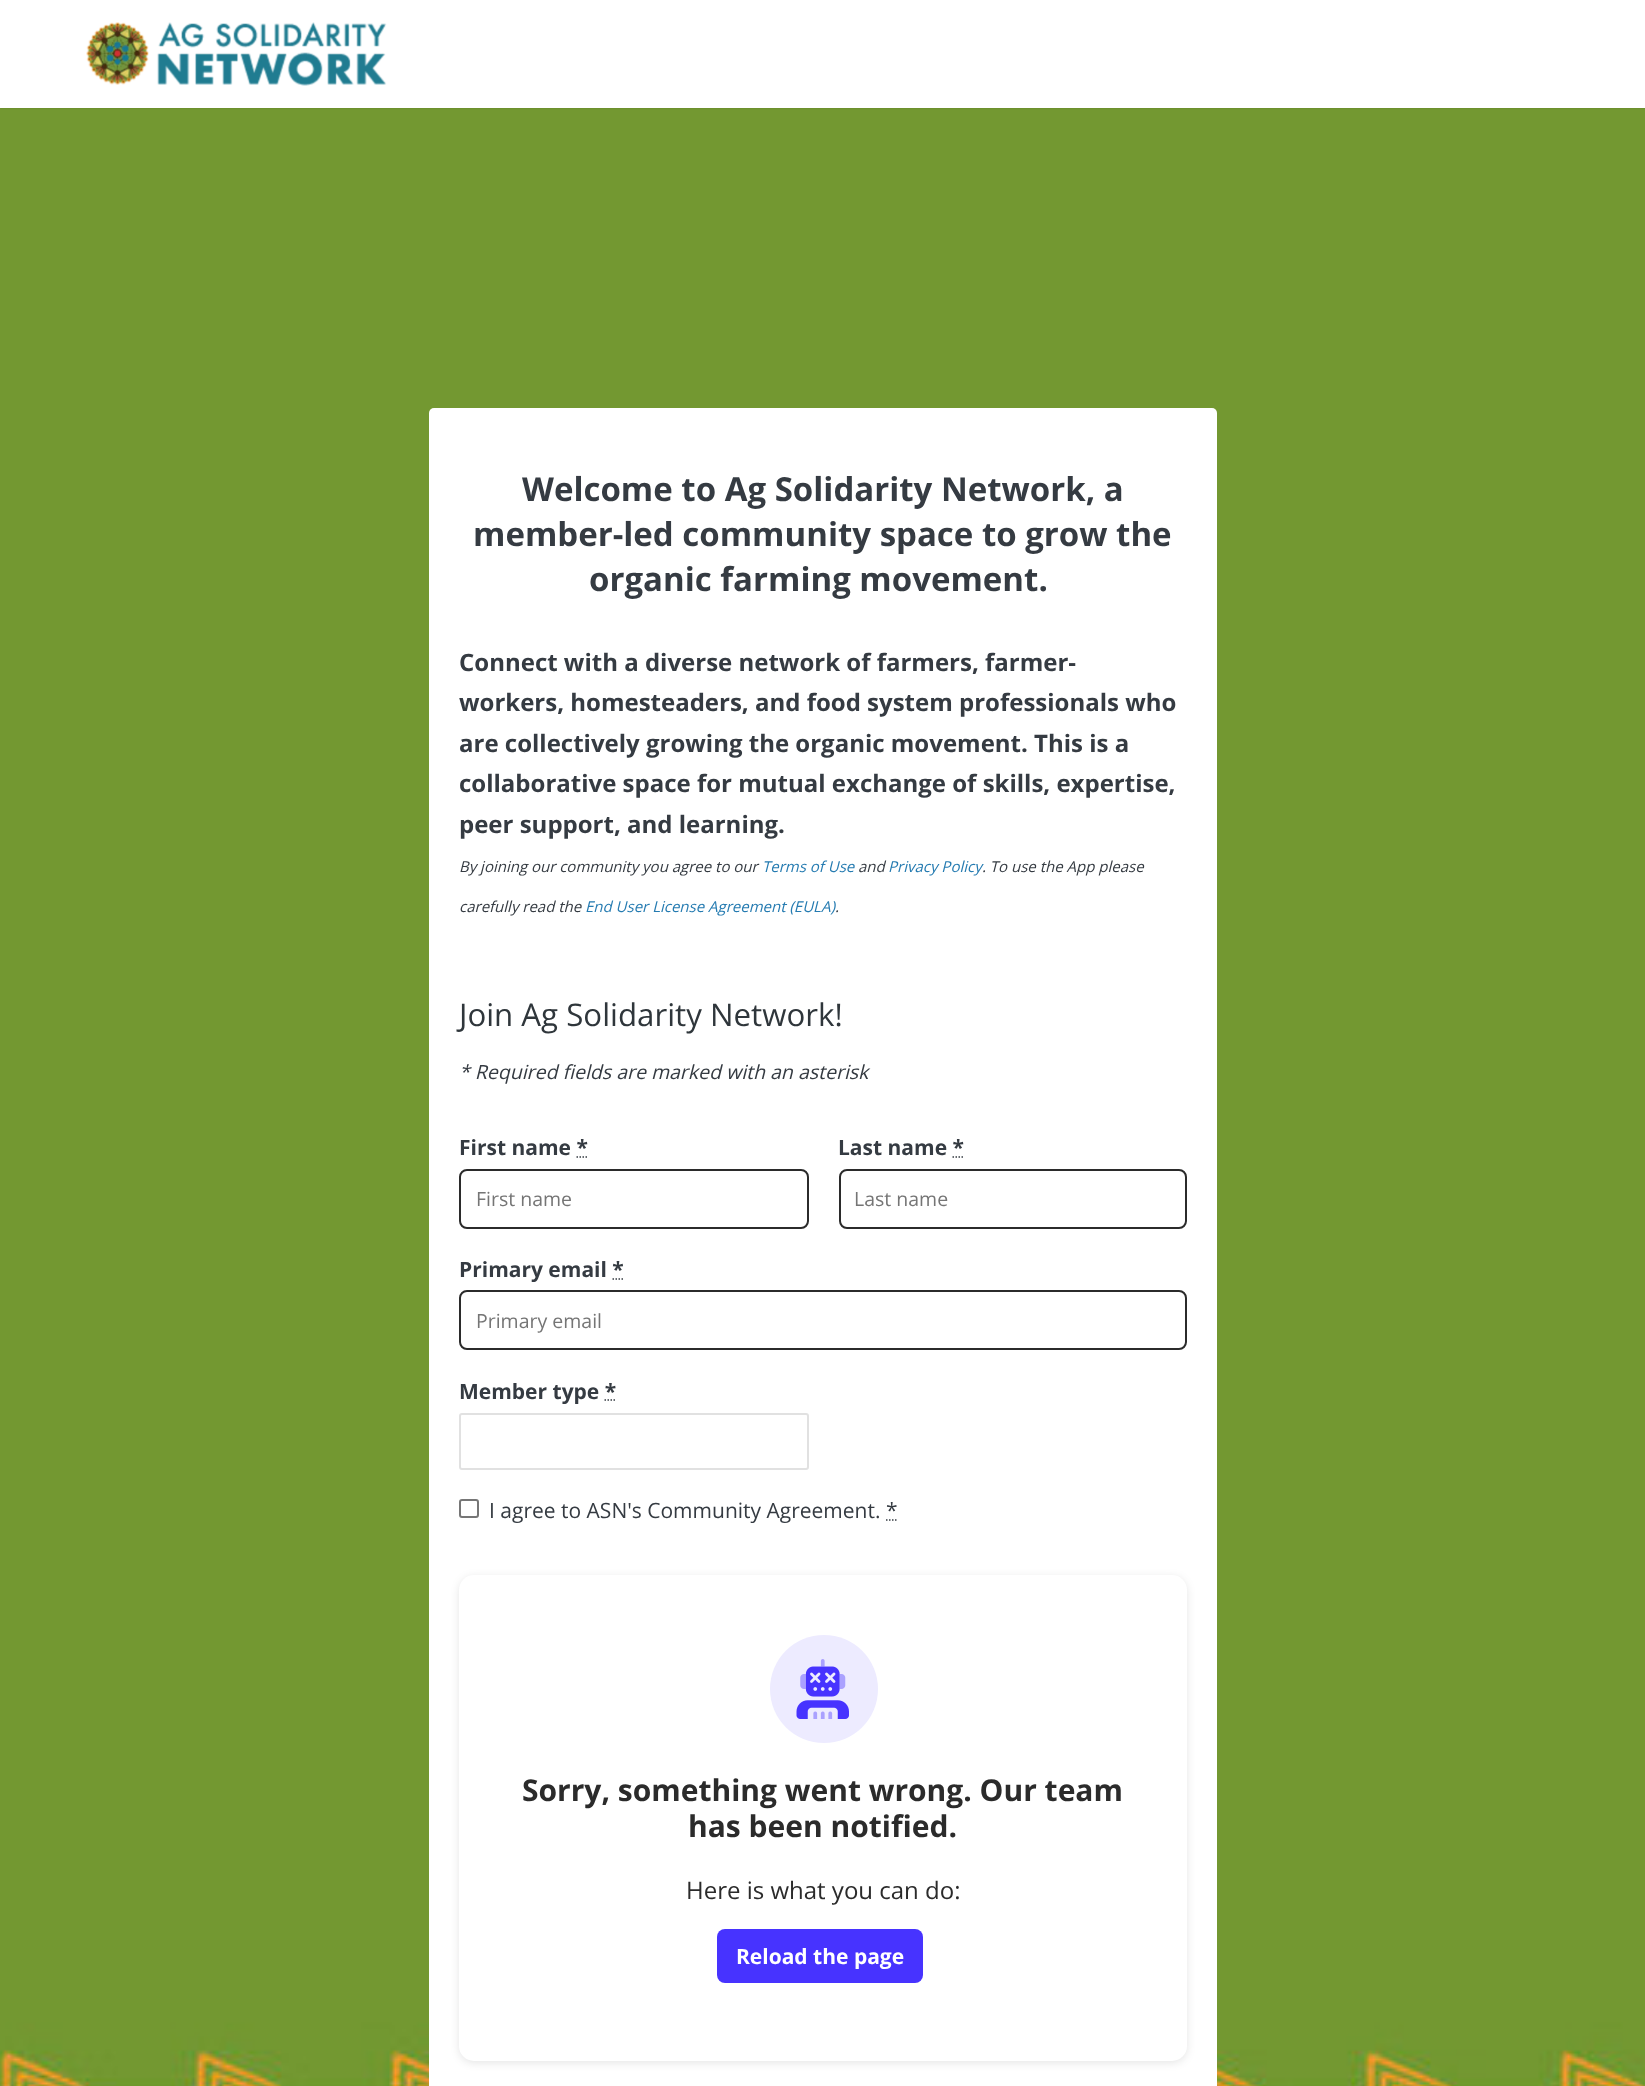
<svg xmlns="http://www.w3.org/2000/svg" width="1645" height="2086">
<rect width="100%" height="100%" fill="#fff"/>
<image x="0" y="108" width="1645" height="1978" href="media/2.png"/>
<rect width="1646" height="108" fill="#00000026" filter="blur(1px)"/>
<rect width="1645" height="108" fill="#fff"/>
<image x="86" y="22" width="301" height="64" href="media/1.png"/>
<rect x="429" y="408" width="788" height="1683" rx="5" fill="#fff"/>
<text x="522" y="501" style="font-family:Open Sans;font-size:33px;font-weight:bold;fill:#353b42">Welcome to Ag Solidarity Network, a</text>
<text x="473" y="546" style="font-family:Open Sans;font-size:33px;font-weight:bold;fill:#353b42">member-led community space to grow the</text>
<text x="589" y="591" style="font-family:Open Sans;font-size:33px;font-weight:bold;fill:#353b42">organic farming movement.</text>
<text x="459" y="671" style="font-family:Open Sans;font-size:24px;font-weight:bold;fill:#353b42">Connect with a diverse network of farmers, farmer-</text>
<text x="459" y="711" style="font-family:Open Sans;font-size:24px;font-weight:bold;fill:#353b42">workers, homesteaders, and food system professionals who</text>
<text x="459" y="752" style="font-family:Open Sans;font-size:24px;font-weight:bold;fill:#353b42">are collectively growing the organic movement. This is a</text>
<text x="459" y="792" style="font-family:Open Sans;font-size:24px;font-weight:bold;fill:#353b42">collaborative space for mutual exchange of skills, expertise,</text>
<text x="459" y="833" style="font-family:Open Sans;font-size:24px;font-weight:bold;fill:#353b42">peer support, and learning.</text>
<text x="459" y="872" style="font-family:Open Sans;font-size:15px;font-style:italic;fill:#353b42">By joining our community you agree to our</text>
<text x="762" y="872" style="font-family:Open Sans;font-size:15px;font-style:italic;fill:#257bb1">Terms of Use</text>
<text x="858" y="872" style="font-family:Open Sans;font-size:15px;font-style:italic;fill:#353b42">and</text>
<text x="888" y="872" style="font-family:Open Sans;font-size:15px;font-style:italic;fill:#257bb1">Privacy Policy</text>
<text x="982" y="872" style="font-family:Open Sans;font-size:15px;font-style:italic;fill:#353b42">. To use the App please</text>
<text x="459" y="912" style="font-family:Open Sans;font-size:15px;font-style:italic;fill:#353b42">carefully read the</text>
<text x="585" y="912" style="font-family:Open Sans;font-size:15px;font-style:italic;fill:#257bb1">End User License Agreement (EULA)</text>
<text x="835" y="912" style="font-family:Open Sans;font-size:15px;font-style:italic;fill:#353b42">.</text>
<text x="459" y="1026" style="font-family:Open Sans;font-size:31.25px;fill:#2f363b">Join Ag Solidarity Network!</text>
<text x="459" y="1079" style="font-family:Open Sans;font-size:19.5px;font-style:italic;fill:#353b42">* Required fields are marked with an asterisk</text>
<text x="459" y="1155" style="font-family:Open Sans;font-size:21px;font-weight:bold;fill:#353b42">First name *</text>
<path d="M576.5 1157h11.5" fill="none" stroke="#353b42" stroke-width="1.5" stroke-dasharray="1.5 1.5"/>
<rect x="460" y="1170" width="348" height="58" rx="7" fill="none" stroke="#2b2b2b" stroke-width="2"/>
<text x="476" y="1206" style="font-family:Open Sans;font-size:19.5px;fill:#757575">First name</text>
<text x="838" y="1155" style="font-family:Open Sans;font-size:21px;font-weight:bold;fill:#353b42">Last name *</text>
<path d="M952.5 1157h11.5" fill="none" stroke="#353b42" stroke-width="1.5" stroke-dasharray="1.5 1.5"/>
<rect x="840" y="1170" width="346" height="58" rx="7" fill="none" stroke="#2b2b2b" stroke-width="2"/>
<text x="854" y="1206" style="font-family:Open Sans;font-size:19.5px;fill:#757575">Last name</text>
<text x="459" y="1277" style="font-family:Open Sans;font-size:21px;font-weight:bold;fill:#353b42">Primary email *</text>
<path d="M612.5 1279h11.5" fill="none" stroke="#353b42" stroke-width="1.5" stroke-dasharray="1.5 1.5"/>
<rect x="460" y="1291" width="726" height="58" rx="7" fill="none" stroke="#2b2b2b" stroke-width="2"/>
<text x="476" y="1328" style="font-family:Open Sans;font-size:19.5px;fill:#757575">Primary email</text>
<text x="459" y="1399" style="font-family:Open Sans;font-size:21px;font-weight:bold;fill:#353b42">Member type *</text>
<path d="M604.5 1400h11.5" fill="none" stroke="#353b42" stroke-width="1.5" stroke-dasharray="1.5 1.5"/>
<rect x="460" y="1414" width="348" height="55" rx="2" fill="none" stroke="#e1e1e1" stroke-width="2"/>
<rect x="460" y="1500" width="18" height="17" rx="2" fill="none" stroke="#767676" stroke-width="2"/>
<text x="489" y="1518" style="font-family:Open Sans;font-size:21px;fill:#353b42">I agree to ASN's Community Agreement. *</text>
<path d="M886 1520h11.5" fill="none" stroke="#353b42" stroke-width="1.5" stroke-dasharray="1.5 1.5"/>
<rect x="459" y="1577" width="728" height="486" rx="15" fill="#0000001a" filter="blur(4.5px)"/>
<rect x="459" y="1575" width="728" height="486" rx="15" fill="#fff"/>
<circle cx="824" cy="1689" r="54" fill="#edebff"/>
<image x="796" y="1659" width="53" height="60" href="media/3.png"/>
<text x="522" y="1801" style="font-family:Open Sans;font-size:30px;font-weight:bold;fill:#2b2b2b">Sorry, something went wrong. Our team</text>
<text x="688" y="1837" style="font-family:Open Sans;font-size:30px;font-weight:bold;fill:#2b2b2b">has been notified.</text>
<text x="686" y="1899" style="font-family:Open Sans;font-size:24px;fill:#2b2b2b">Here is what you can do:</text>
<rect x="717" y="1929" width="206" height="54" rx="8" fill="#4733ff"/>
<text x="736" y="1964" style="font-family:Open Sans;font-size:21px;font-weight:bold;fill:#fff">Reload the page</text>
</svg>
